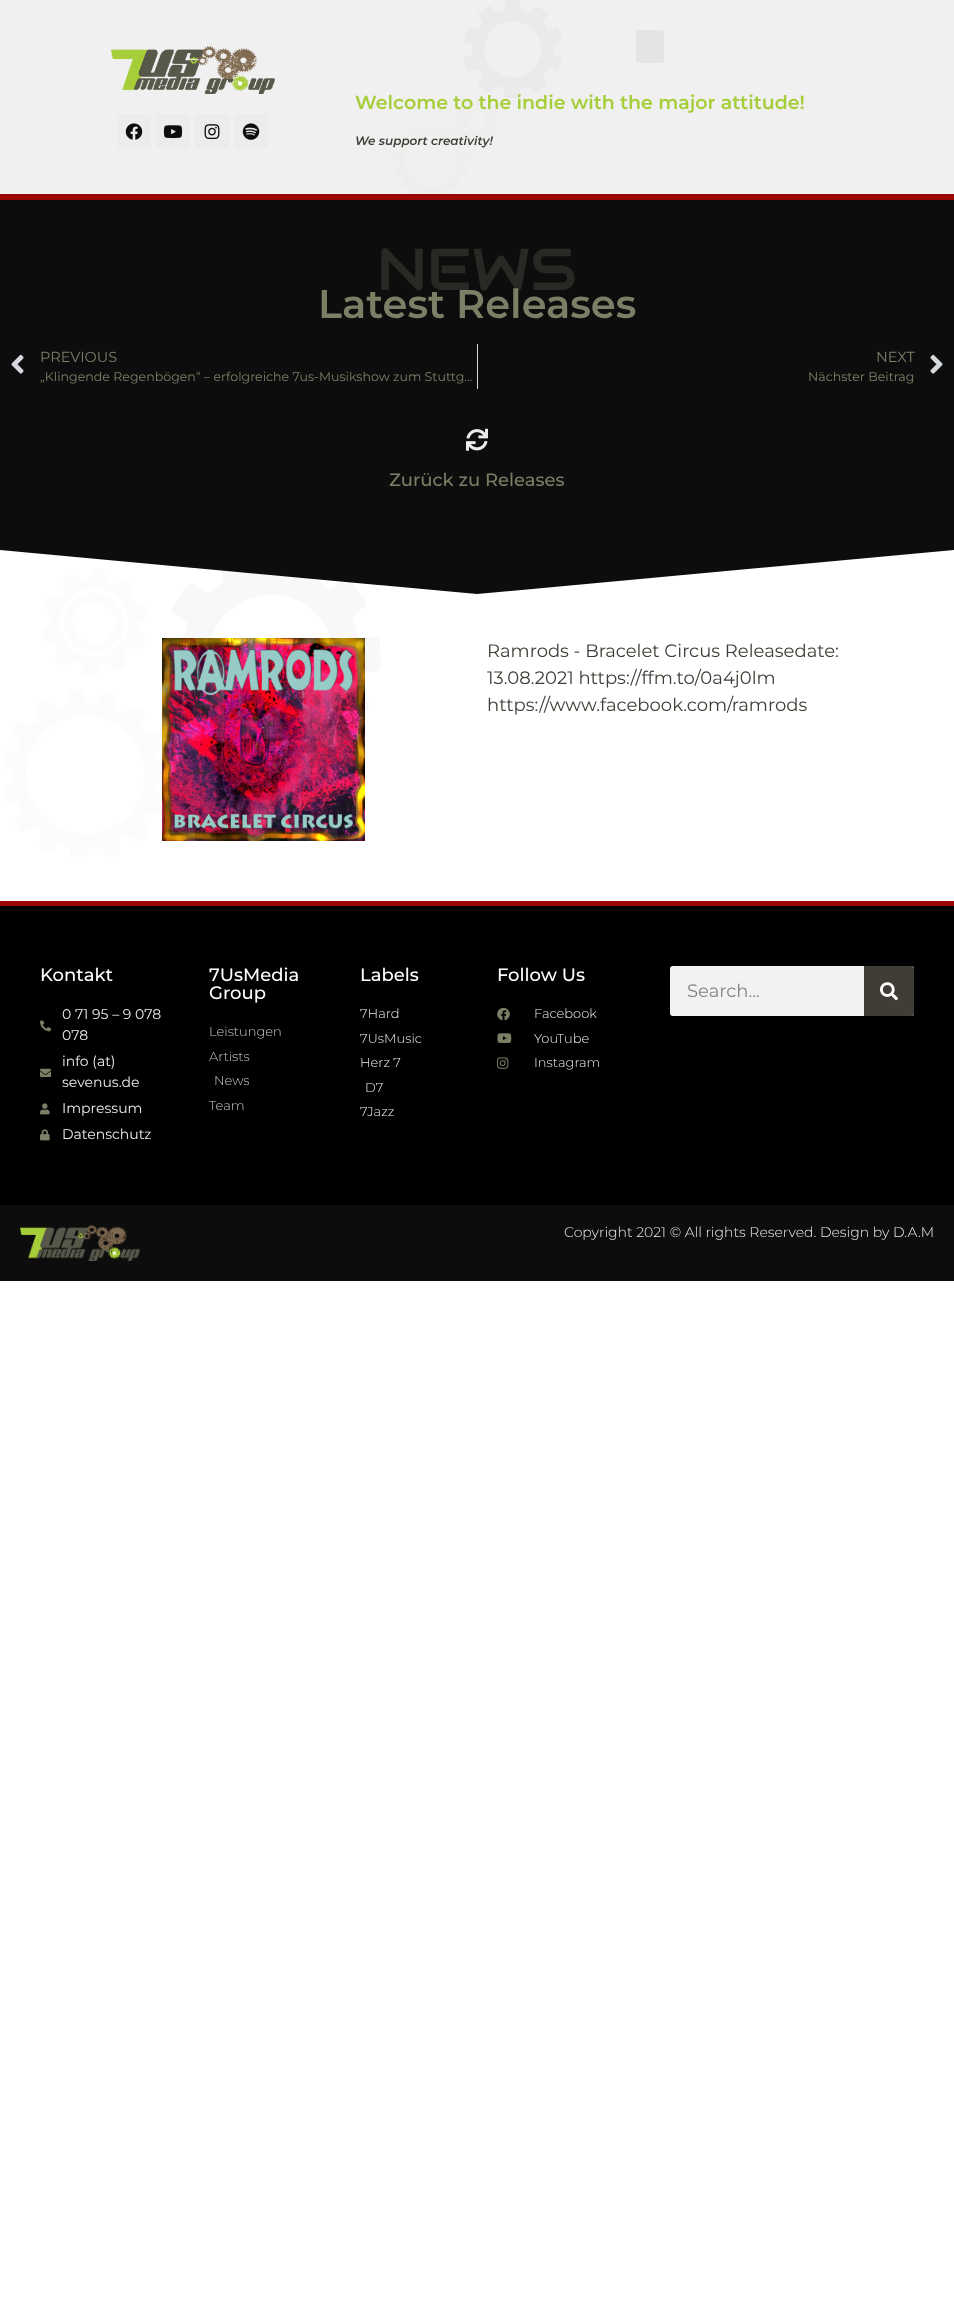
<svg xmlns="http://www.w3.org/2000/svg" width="954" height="2299">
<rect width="100%" height="100%" fill="#fff"/>
<rect width="954" height="194" fill="#f0f0f0"/>
<image x="392" y="0" width="170" height="194" href="media/1.png"/>
<rect y="194" width="954" height="6" fill="#9c0505"/>
<image x="111" y="46" width="164" height="48" href="media/2.png"/>
<rect x="117" y="114" width="34" height="34" rx="3" fill="#ececec"/>
<image x="125" y="123" width="18" height="17" href="media/3.png"/>
<rect x="156" y="114" width="34" height="34" rx="3" fill="#ececec"/>
<image x="163" y="125" width="20" height="13" href="media/4.png"/>
<rect x="195" y="114" width="34" height="34" rx="3" fill="#ececec"/>
<image x="204" y="124" width="16" height="16" href="media/5.png"/>
<rect x="234" y="114" width="34" height="34" rx="3" fill="#ececec"/>
<image x="242" y="123" width="18" height="17" href="media/6.png"/>
<rect x="636" y="30" width="28" height="33" rx="3" fill="#e4e4e4"/>
<text x="355" y="109" style="font-family:Montserrat;font-size:19px;font-weight:100;fill:#a6ce39">Welcome to the indie with the major attitude!</text>
<text x="355" y="145" style="font-family:Montserrat;font-size:12px;font-weight:100;font-style:italic;fill:#403c36">We support creativity!</text>
<rect y="200" width="954" height="347" fill="#0d0d0d"/>
<text x="377" y="290" style="font-family:Audiowide;font-size:59px;fill:#2a2824">NEWS</text>
<text x="318" y="318" style="font-family:Montserrat;font-size:40px;font-weight:100;fill:#798066">Latest Releases</text>
<image x="11" y="354" width="13" height="20" href="media/7.png"/>
<text x="40" y="362" style="font-family:'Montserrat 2';font-size:14.5px;font-weight:100;fill:#798066">PREVIOUS</text>
<text x="40" y="381" style="font-family:'Montserrat 2';font-size:12.6px;font-weight:100;fill:#798066">„Klingende Regenbögen“ – erfolgreiche 7us-Musikshow zum Stuttg…</text>
<rect x="477" y="344" width="1" height="45" fill="#d5d8dc"/>
<text x="876" y="362" style="font-family:'Montserrat 2';font-size:14.5px;font-weight:100;fill:#798066">NEXT</text>
<text x="808" y="381" style="font-family:'Montserrat 2';font-size:12.6px;font-weight:100;fill:#798066">Nächster Beitrag</text>
<image x="930" y="354" width="13" height="20" href="media/8.png"/>
<image x="466" y="428" width="22" height="23" href="media/9.png"/>
<text x="389" y="486" style="font-family:'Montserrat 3';font-size:18px;font-weight:100;fill:#798066">Zurück zu Releases</text>
<image x="3" y="568" width="378" height="289" href="media/10.png"/>
<path d="M477 594l-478-44v-3h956v3z" fill="#0d0d0d"/>
<image x="162" y="638" width="203" height="203" href="media/11.png"/>
<text x="487" y="657" style="font-family:'Montserrat 2';font-size:18px;font-weight:100;fill:#403c36">Ramrods - Bracelet Circus Releasedate:</text>
<text x="487" y="684" style="font-family:'Montserrat 2';font-size:18px;font-weight:100;fill:#403c36">13.08.2021 https://ffm.to/0a4j0lm</text>
<text x="487" y="711" style="font-family:'Montserrat 2';font-size:18px;font-weight:100;fill:#403c36">https://www.facebook.com/ramrods</text>
<rect y="906" width="954" height="299" fill="#000"/>
<rect y="901" width="954" height="5" fill="#9c0505"/>
<text x="40" y="981" style="font-family:'Montserrat 3';font-size:18px;font-weight:100;fill:#fff">Kontakt</text>
<image x="40" y="1020" width="11" height="12" href="media/12.png"/>
<text x="62" y="1019" style="font-family:'Montserrat 2';font-size:14px;font-weight:100;fill:#ececec">0 71 95 – 9 078</text>
<text x="62" y="1040" style="font-family:'Montserrat 2';font-size:14px;font-weight:100;fill:#ececec">078</text>
<image x="40" y="1068" width="11" height="9" href="media/13.png"/>
<text x="62" y="1066" style="font-family:'Montserrat 2';font-size:14px;font-weight:100;fill:#ececec">info (at)</text>
<text x="62" y="1087" style="font-family:'Montserrat 2';font-size:14px;font-weight:100;fill:#ececec">sevenus.de</text>
<image x="40" y="1103" width="10" height="12" href="media/14.png"/>
<text x="62" y="1113" style="font-family:'Montserrat 2';font-size:14px;font-weight:100;fill:#ececec">Impressum</text>
<image x="40" y="1129" width="10" height="12" href="media/15.png"/>
<text x="62" y="1139" style="font-family:'Montserrat 2';font-size:14px;font-weight:100;fill:#ececec">Datenschutz</text>
<text x="209" y="981" style="font-family:'Montserrat 3';font-size:18px;font-weight:100;fill:#fff">7UsMedia</text>
<text x="209" y="999" style="font-family:'Montserrat 3';font-size:18px;font-weight:100;fill:#fff">Group</text>
<text x="209" y="1036" style="font-family:'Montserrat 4';font-size:13px;font-weight:100;fill:#c9c9c9">Leistungen</text>
<text x="209" y="1061" style="font-family:'Montserrat 4';font-size:13px;font-weight:100;fill:#c9c9c9">Artists</text>
<text x="214" y="1085" style="font-family:'Montserrat 4';font-size:13px;font-weight:100;fill:#c9c9c9">News</text>
<text x="209" y="1110" style="font-family:'Montserrat 4';font-size:13px;font-weight:100;fill:#c9c9c9">Team</text>
<text x="360" y="981" style="font-family:'Montserrat 3';font-size:18px;font-weight:100;fill:#fff">Labels</text>
<text x="360" y="1018" style="font-family:'Montserrat 4';font-size:13px;font-weight:100;fill:#ececec">7Hard</text>
<text x="360" y="1043" style="font-family:'Montserrat 4';font-size:13px;font-weight:100;fill:#ececec">7UsMusic</text>
<text x="360" y="1067" style="font-family:'Montserrat 4';font-size:13px;font-weight:100;fill:#ececec">Herz 7</text>
<text x="365" y="1092" style="font-family:'Montserrat 4';font-size:13px;font-weight:100;fill:#ececec">D7</text>
<text x="360" y="1116" style="font-family:'Montserrat 4';font-size:13px;font-weight:100;fill:#ececec">7Jazz</text>
<text x="497" y="981" style="font-family:'Montserrat 3';font-size:18px;font-weight:100;fill:#fff">Follow Us</text>
<image x="497" y="1007" width="13" height="14" href="media/16.png"/>
<text x="534" y="1018" style="font-family:'Montserrat 4';font-size:13px;font-weight:100;fill:#ececec">Facebook</text>
<image x="497" y="1033" width="15" height="10" href="media/17.png"/>
<text x="534" y="1043" style="font-family:'Montserrat 4';font-size:13px;font-weight:100;fill:#ececec">YouTube</text>
<image x="497" y="1057" width="12" height="12" href="media/18.png"/>
<text x="534" y="1067" style="font-family:'Montserrat 4';font-size:13px;font-weight:100;fill:#ececec">Instagram</text>
<rect x="670" y="966" width="244" height="50" rx="3" fill="#f1f2f3"/>
<text x="687" y="997" style="font-family:'Montserrat 2';font-size:18px;font-weight:100;fill:#878582">Search...</text>
<path d="M864 966h47c1.5 0 3 1.5 3 3v44c0 1.5-1.5 3-3 3h-47z" fill="#403c36"/>
<image x="880" y="982" width="18" height="19" href="media/19.png"/>
<rect y="1205" width="954" height="76" fill="#0d0d0d"/>
<image x="20" y="1225" width="120" height="36" href="media/20.png"/>
<text x="564" y="1237" style="font-family:'Montserrat 4';font-size:14px;font-weight:100;fill:#ececec">Copyright 2021 © All rights Reserved. Design by D.A.M</text>
</svg>
